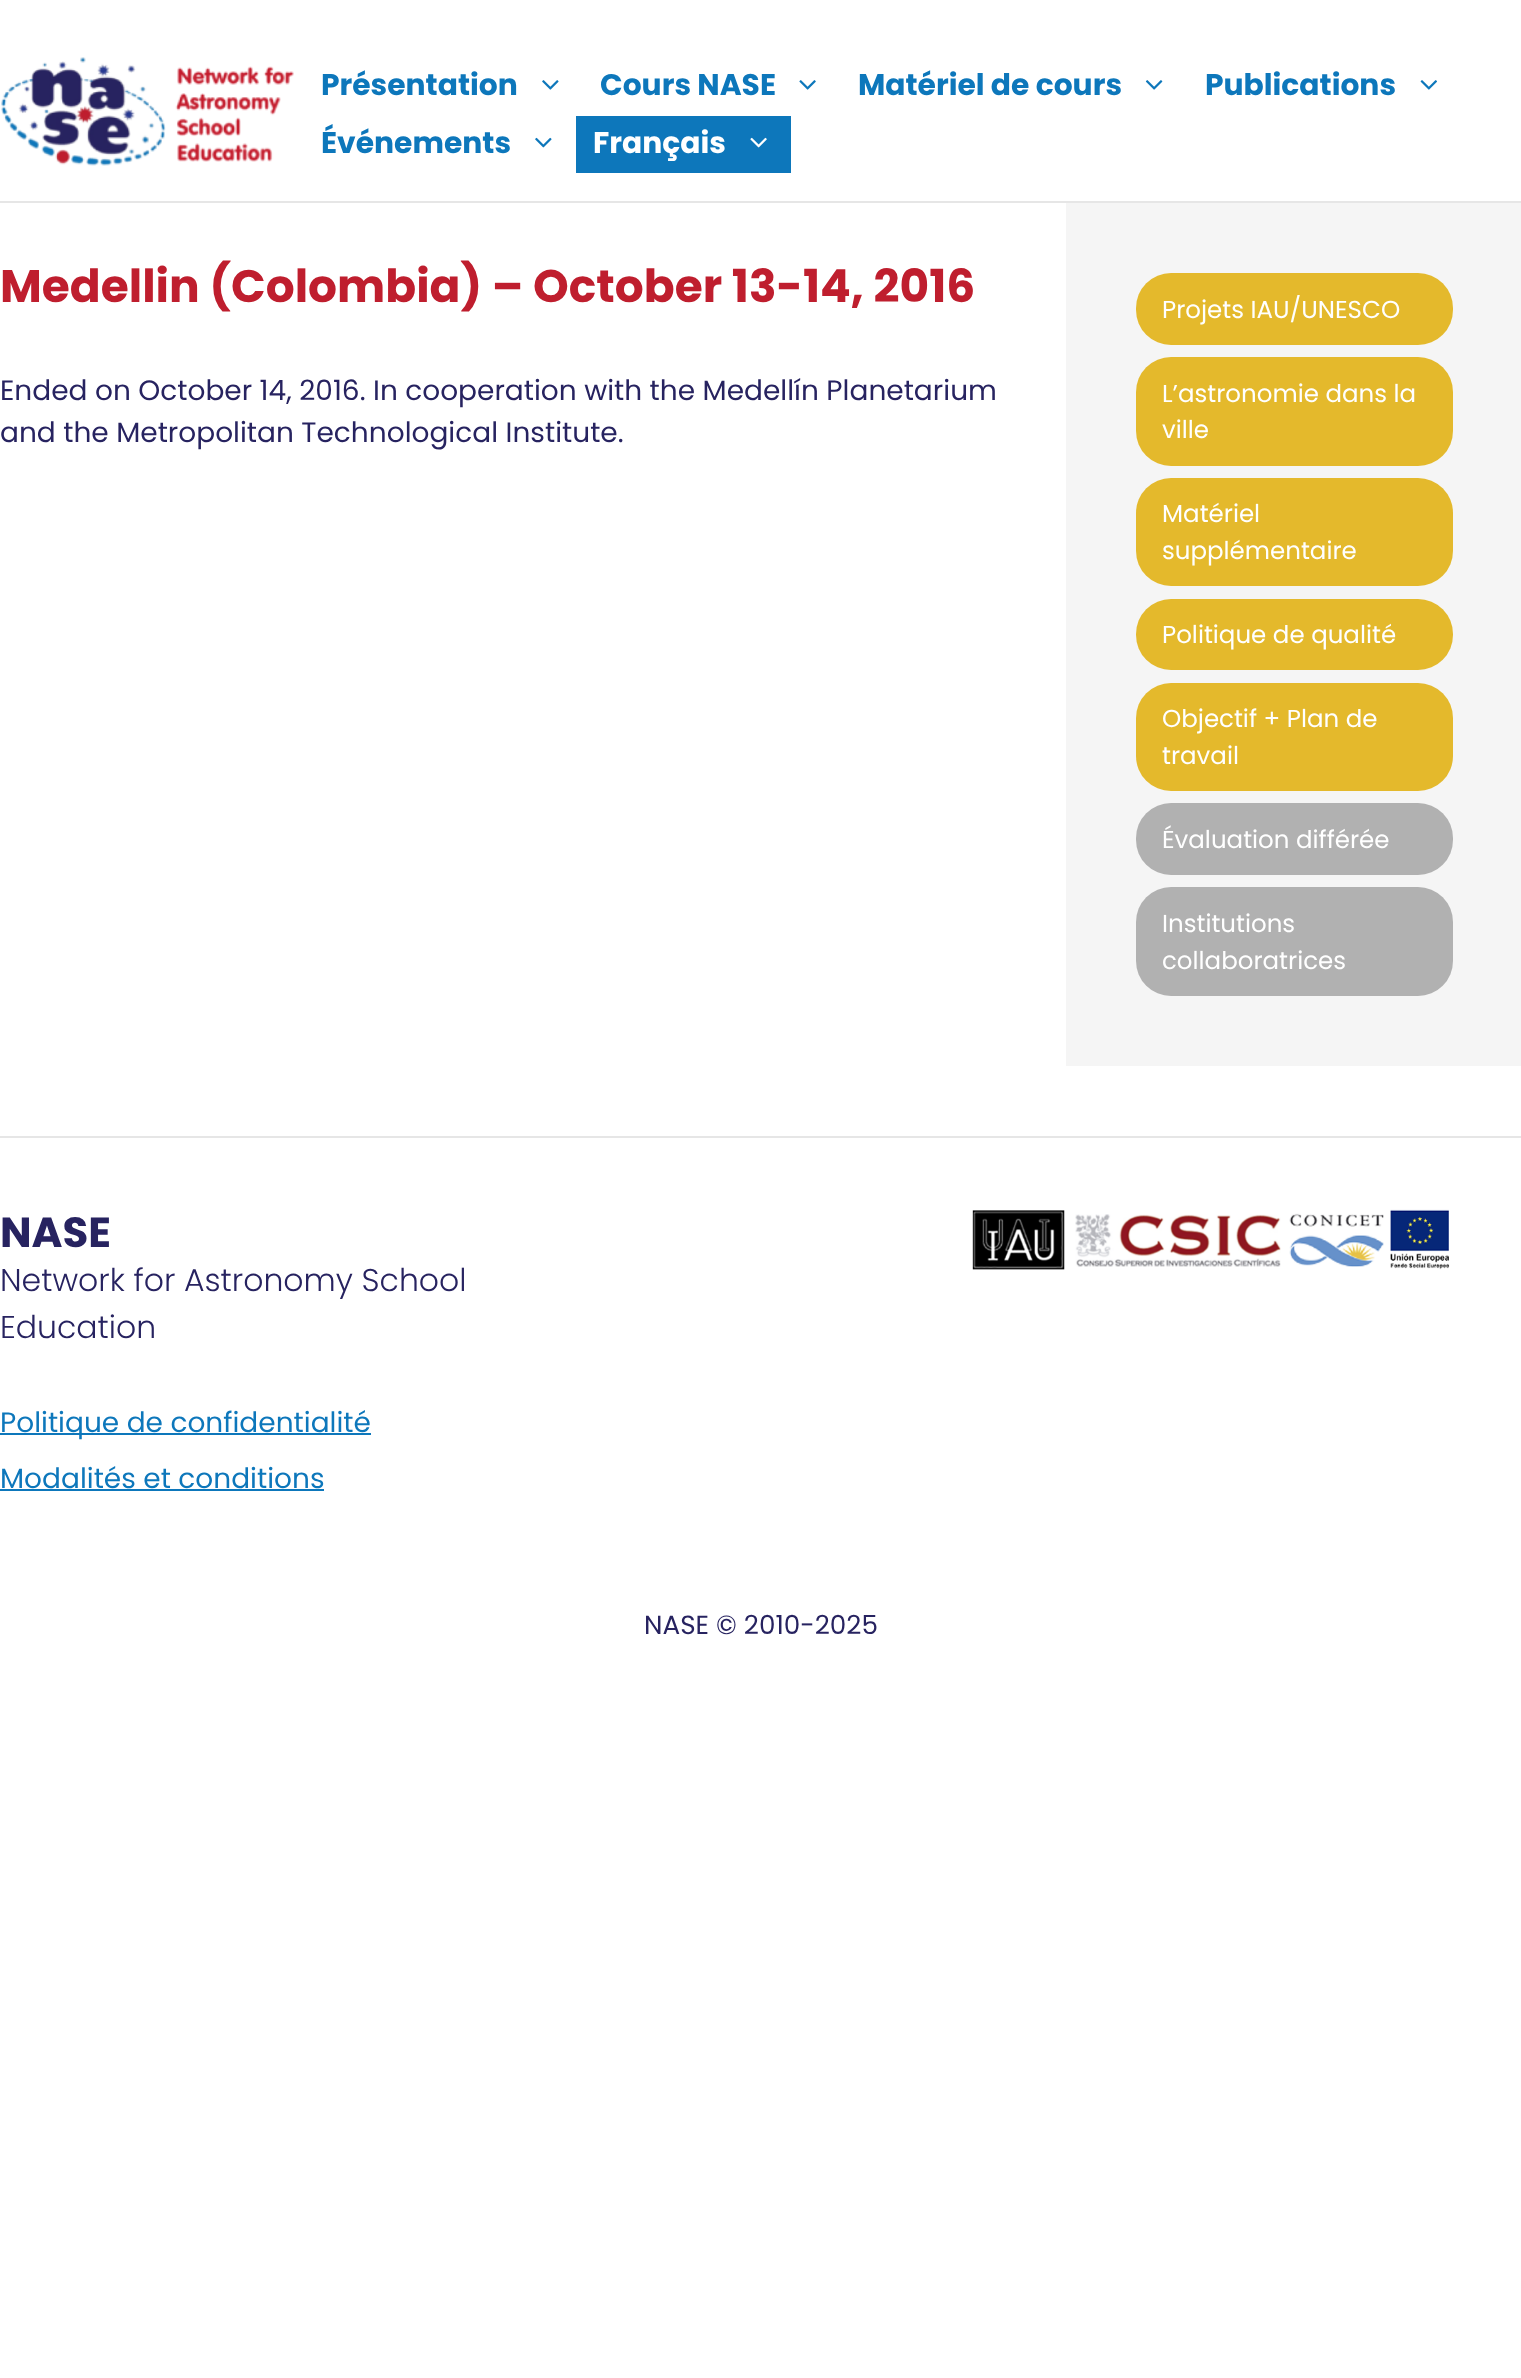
<svg xmlns="http://www.w3.org/2000/svg" width="1521" height="2378">
<rect width="100%" height="100%" fill="#fff"/>
<rect y="201" width="1521" height="2" fill="#e6e6e6"/>
<image x="1" y="57" width="293" height="109" href="media/1.png"/>
<text x="321" y="95" style="font-family:Poppins;font-size:29.75px;font-weight:bold;fill:#0d77bb">Présentation</text>
<image x="542" y="80" width="17" height="10" href="media/2.png"/>
<text x="600" y="95" style="font-family:Poppins;font-size:29.75px;font-weight:bold;fill:#0d77bb">Cours NASE</text>
<image x="799" y="80" width="17" height="10" href="media/3.png"/>
<text x="858" y="95" style="font-family:Poppins;font-size:29.75px;font-weight:bold;fill:#0d77bb">Matériel de cours</text>
<image x="1145" y="80" width="18" height="10" href="media/4.png"/>
<text x="1205" y="95" style="font-family:Poppins;font-size:29.75px;font-weight:bold;fill:#0d77bb">Publications</text>
<image x="1420" y="80" width="17" height="10" href="media/5.png"/>
<text x="321" y="153" style="font-family:Poppins;font-size:29.75px;font-weight:bold;fill:#0d77bb">Événements</text>
<image x="535" y="137" width="17" height="11" href="media/6.png"/>
<rect x="576" y="116" width="215" height="57" fill="#0d77bb"/>
<text x="593" y="153" style="font-family:Poppins;font-size:29.75px;font-weight:bold;fill:#fff">Français</text>
<image x="750" y="137" width="17" height="11" href="media/7.png"/>
<text x="0" y="302" style="font-family:Poppins;font-size:45.5px;font-weight:bold;fill:#bf1e2e">Medellin (Colombia) – October 13-14, 2016</text>
<text x="0" y="400" style="font-family:Poppins;font-size:28px;fill:#272360">Ended on October 14, 2016. In cooperation with the Medellín Planetarium</text>
<text x="0" y="442" style="font-family:Poppins;font-size:28px;fill:#272360">and the Metropolitan Technological Institute.</text>
<rect x="1066" y="203" width="455" height="863" fill="#f5f5f5"/>
<rect x="1136" y="273" width="317" height="72" rx="35" fill="#e4b92c"/>
<text x="1162" y="318" style="font-family:Poppins;font-size:24.5px;fill:#fff">Projets IAU/UNESCO</text>
<rect x="1136" y="357" width="317" height="109" rx="35" fill="#e4b92c"/>
<text x="1162" y="402" style="font-family:Poppins;font-size:24.5px;fill:#fff">L’astronomie dans la</text>
<text x="1162" y="438" style="font-family:Poppins;font-size:24.5px;fill:#fff">ville</text>
<rect x="1136" y="478" width="317" height="108" rx="35" fill="#e4b92c"/>
<text x="1162" y="522" style="font-family:Poppins;font-size:24.5px;fill:#fff">Matériel</text>
<text x="1162" y="559" style="font-family:Poppins;font-size:24.5px;fill:#fff">supplémentaire</text>
<rect x="1136" y="599" width="317" height="71" rx="35" fill="#e4b92c"/>
<text x="1162" y="643" style="font-family:Poppins;font-size:24.5px;fill:#fff">Politique de qualité</text>
<rect x="1136" y="683" width="317" height="108" rx="35" fill="#e4b92c"/>
<text x="1162" y="727" style="font-family:Poppins;font-size:24.5px;fill:#fff">Objectif + Plan de</text>
<text x="1162" y="764" style="font-family:Poppins;font-size:24.5px;fill:#fff">travail</text>
<rect x="1136" y="803" width="317" height="72" rx="35" fill="#b1b1b1"/>
<text x="1162" y="848" style="font-family:Poppins;font-size:24.5px;fill:#fff">Évaluation différée</text>
<rect x="1136" y="887" width="317" height="109" rx="35" fill="#b1b1b1"/>
<text x="1162" y="932" style="font-family:Poppins;font-size:24.5px;fill:#fff">Institutions</text>
<text x="1162" y="969" style="font-family:Poppins;font-size:24.5px;fill:#fff">collaboratrices</text>
<rect y="1136" width="1521" height="2" fill="#e6e6e6"/>
<text x="0" y="1247" style="font-family:Poppins;font-size:42px;font-weight:bold;fill:#272360">NASE</text>
<text x="0" y="1291" style="font-family:Poppins;font-size:31.5px;font-weight:300;fill:#272360">Network for Astronomy School</text>
<text x="0" y="1338" style="font-family:Poppins;font-size:31.5px;font-weight:300;fill:#272360">Education</text>
<rect y="1433" width="371" height="2" fill="#0d77bb"/>
<text x="0" y="1432" style="font-family:Poppins;font-size:28px;fill:#0d77bb">Politique de confidentialité</text>
<text x="0" y="1488" style="font-family:Poppins;font-size:28px;fill:#0d77bb">Modalités et conditions</text>
<rect y="1489" width="324" height="2" fill="#0d77bb"/>
<image x="972" y="1210" width="93" height="60" href="media/8.png"/>
<image x="1075" y="1214" width="206" height="53" href="media/9.png"/>
<image x="1289" y="1213" width="95" height="54" href="media/10.png"/>
<image x="1390" y="1209" width="60" height="61" href="media/11.png"/>
<text x="644" y="1634" style="font-family:Poppins;font-size:26.25px;fill:#272360">NASE © 2010-2025</text>
</svg>
